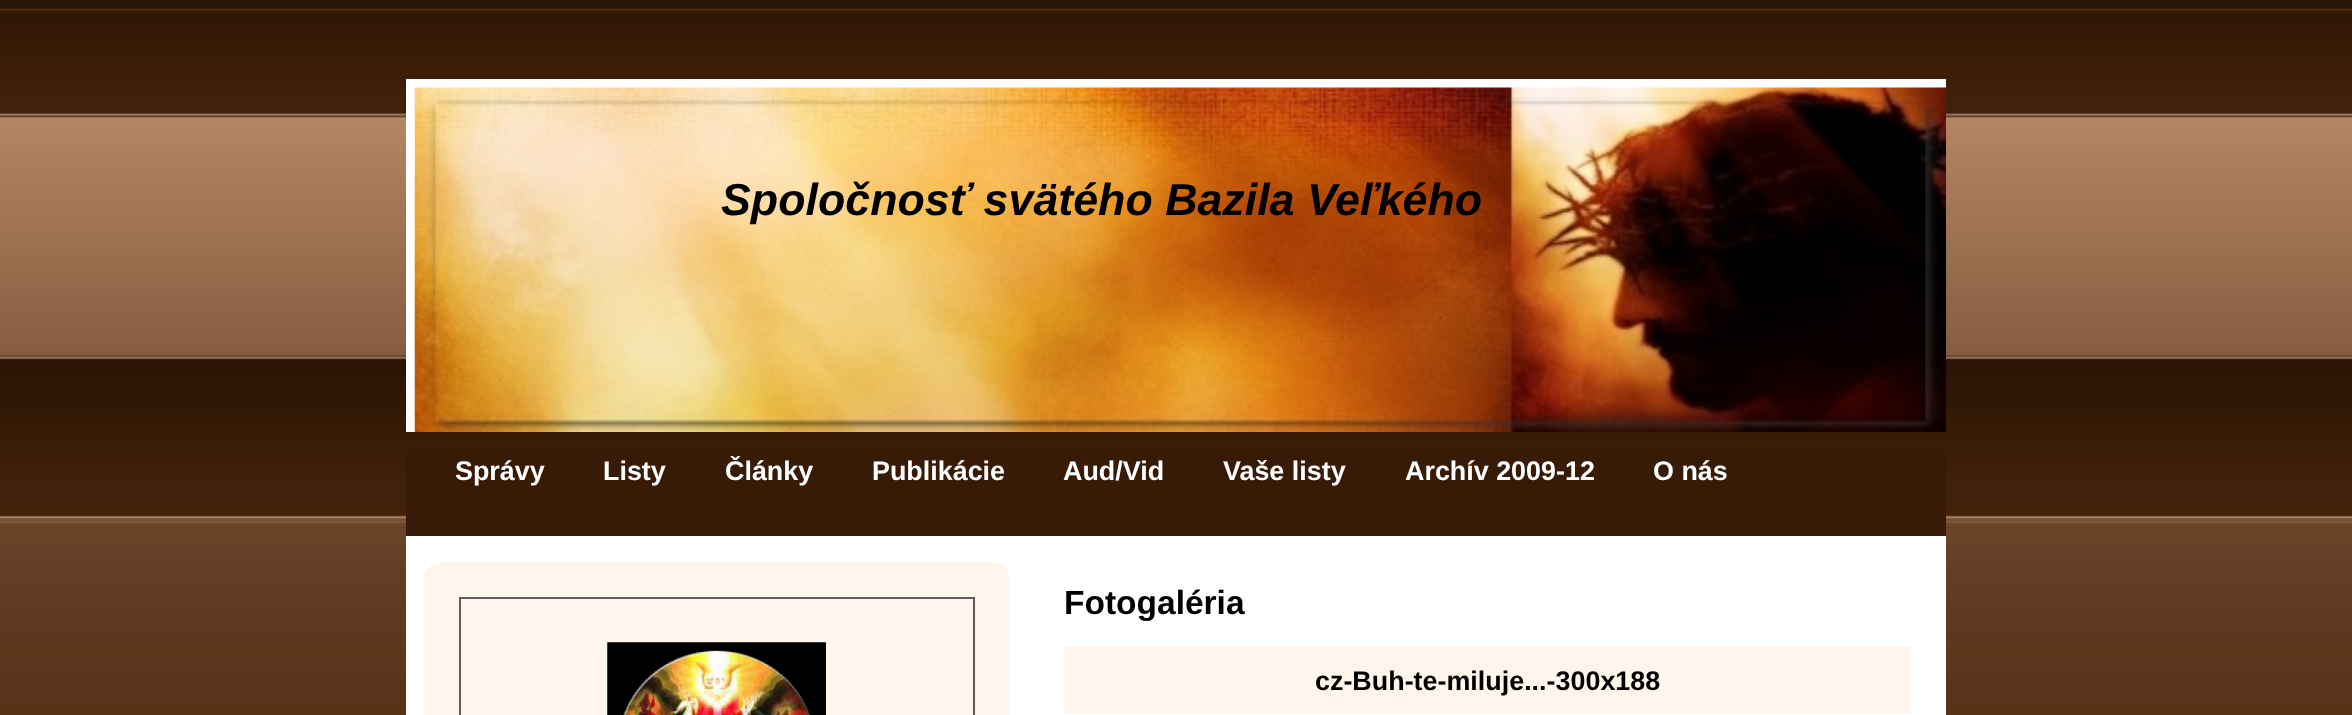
<svg xmlns="http://www.w3.org/2000/svg" width="2352" height="715">
<rect width="100%" height="100%" fill="#fff"/>
<image x="0" y="0" width="2352" height="715" href="media/1.png"/>
<rect x="406" y="79" width="1540" height="353" fill="#fff"/>
<image x="414" y="87" width="1532" height="345" href="media/2.png"/>
<text x="721" y="215" style="font-family:Liberation Sans;font-size:44.75px;font-weight:bold;font-style:italic;fill:#000">Spoločnosť svätého Bazila Veľkého</text>
<rect x="406" y="536" width="1540" height="179" fill="#fff"/>
<rect x="406" y="446" width="1540" height="90" fill="#371b07"/>
<text x="455" y="480" style="font-family:Liberation Sans;font-size:26.9px;font-weight:bold;fill:#fff">Správy</text>
<text x="603" y="480" style="font-family:Liberation Sans;font-size:26.9px;font-weight:bold;fill:#fff">Listy</text>
<text x="725" y="480" style="font-family:Liberation Sans;font-size:26.9px;font-weight:bold;fill:#fff">Články</text>
<text x="872" y="480" style="font-family:Liberation Sans;font-size:26.9px;font-weight:bold;fill:#fff">Publikácie</text>
<text x="1063" y="480" style="font-family:Liberation Sans;font-size:26.9px;font-weight:bold;fill:#fff">Aud/Vid</text>
<text x="1223" y="480" style="font-family:Liberation Sans;font-size:26.9px;font-weight:bold;fill:#fff">Vaše listy</text>
<text x="1405" y="480" style="font-family:Liberation Sans;font-size:26.9px;font-weight:bold;fill:#fff">Archív 2009-12</text>
<text x="1653" y="480" style="font-family:Liberation Sans;font-size:26.9px;font-weight:bold;fill:#fff">O nás</text>
<rect x="424" y="562" width="586" height="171" rx="18" fill="#fef6ec"/>
<rect x="460" y="598" width="514" height="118" fill="none" stroke="#5d5d5d" stroke-width="2"/>
<image x="607" y="642" width="219" height="73" href="media/3.png"/>
<text x="1064" y="614" style="font-family:Liberation Sans;font-size:33.5px;font-weight:bold;fill:#000">Fotogaléria</text>
<rect x="1064" y="646" width="847" height="68" fill="#fef6ec"/>
<text x="1315" y="690" style="font-family:Liberation Sans;font-size:26.9px;font-weight:bold;fill:#000">cz-Buh-te-miluje...-300x188</text>
</svg>
